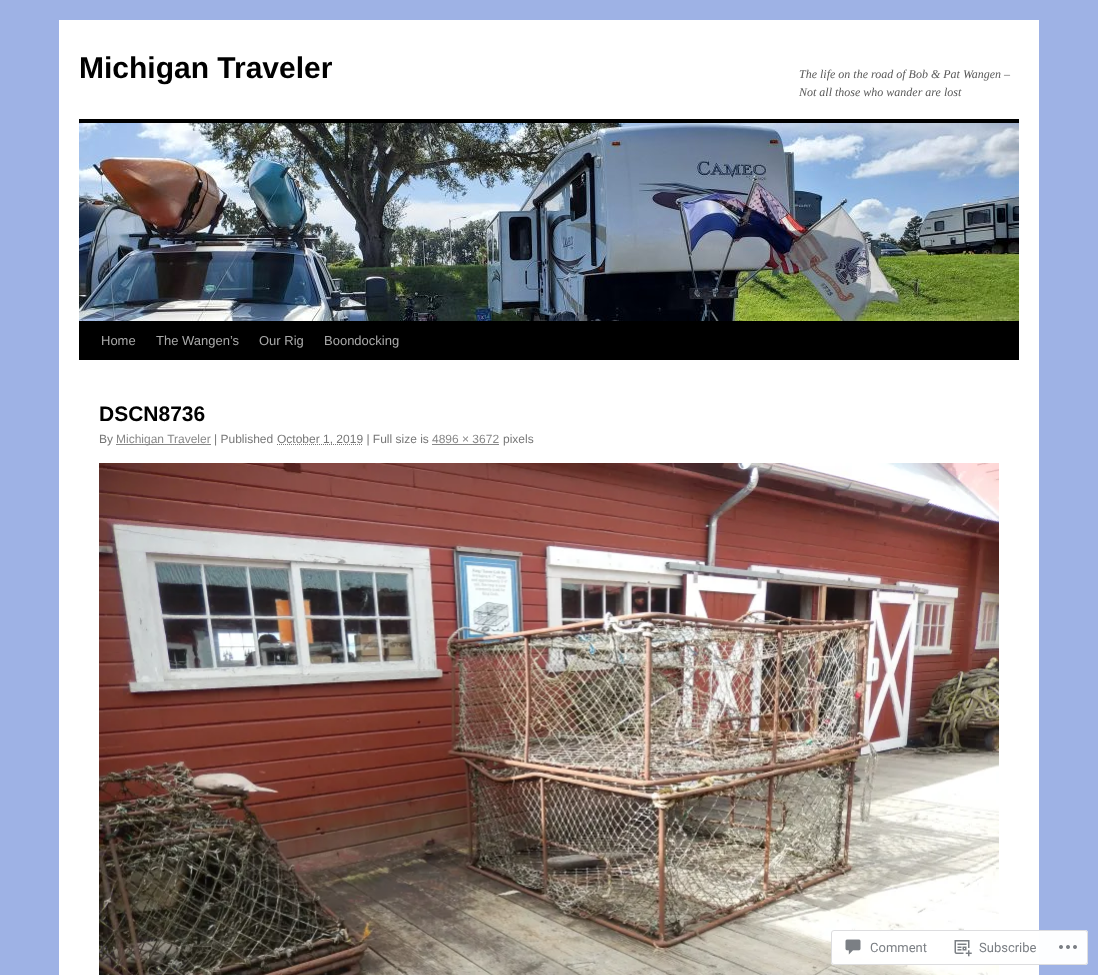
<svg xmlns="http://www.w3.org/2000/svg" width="1098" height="975">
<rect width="100%" height="100%" fill="#9eb2e5"/>
<rect x="59" y="20" width="980" height="955" fill="#fff"/>
<text x="79" y="78" style="font-family:Liberation Sans;font-size:30px;font-weight:bold;fill:#000">Michigan Traveler</text>
<text x="799" y="78" style="font-family:Liberation Serif;font-size:12px;font-style:italic;fill:#595959">The life on the road of Bob &amp; Pat Wangen –</text>
<text x="799" y="96" style="font-family:Liberation Serif;font-size:12px;font-style:italic;fill:#595959">Not all those who wander are lost</text>
<rect x="79" y="119" width="940" height="4" fill="#000"/>
<rect x="79" y="321" width="940" height="39" fill="#000"/>
<image x="79" y="123" width="940" height="198" href="media/1.png"/>
<text x="101" y="345" style="font-family:Liberation Sans;font-size:13px;fill:#aaa">Home</text>
<text x="156" y="345" style="font-family:Liberation Sans;font-size:13px;fill:#aaa">The Wangen’s</text>
<text x="259" y="345" style="font-family:Liberation Sans;font-size:13px;fill:#aaa">Our Rig</text>
<text x="324" y="345" style="font-family:Liberation Sans;font-size:13px;fill:#aaa">Boondocking</text>
<text x="99" y="421" style="font-family:Liberation Sans;font-size:21px;font-weight:bold;fill:#000">DSCN8736</text>
<text x="99" y="443" style="font-family:Liberation Sans;font-size:12px;fill:#777">By</text>
<rect x="116" y="444" width="95" height="1" fill="#888"/>
<text x="116" y="443" style="font-family:Liberation Sans;font-size:12px;fill:#888">Michigan Traveler</text>
<text x="214" y="443" style="font-family:Liberation Sans;font-size:12px;fill:#777">| Published</text>
<path d="M277 444.5h86" fill="none" stroke="#777" stroke-dasharray="1 1"/>
<text x="277" y="443" style="font-family:Liberation Sans;font-size:12px;fill:#777">October 1, 2019 | Full size is</text>
<text x="432" y="443" style="font-family:Liberation Sans;font-size:12px;fill:#888">4896 × 3672</text>
<rect x="432" y="444" width="67" height="1" fill="#888"/>
<text x="503" y="443" style="font-family:Liberation Sans;font-size:12px;fill:#777">pixels</text>
<image x="99" y="463" width="900" height="512" href="media/2.png"/>
<rect x="831" y="930" width="257" height="35" rx="3" fill="#fffffffa"/>
<rect x="831.5" y="930.5" width="256" height="34" rx="2.5" fill="none" stroke="#dcdcdefa"/>
<image x="845" y="939" width="16" height="16" href="media/3.png"/>
<text x="870" y="952" style="font-family:Roboto;font-size:13px;fill:#7b7f84">Comment</text>
<image x="954" y="940" width="18" height="17" href="media/4.png"/>
<text x="979" y="952" style="font-family:Roboto;font-size:13px;fill:#7b7f84">Subscribe</text>
<image x="1059" y="945" width="18" height="4" href="media/5.png"/>
</svg>
